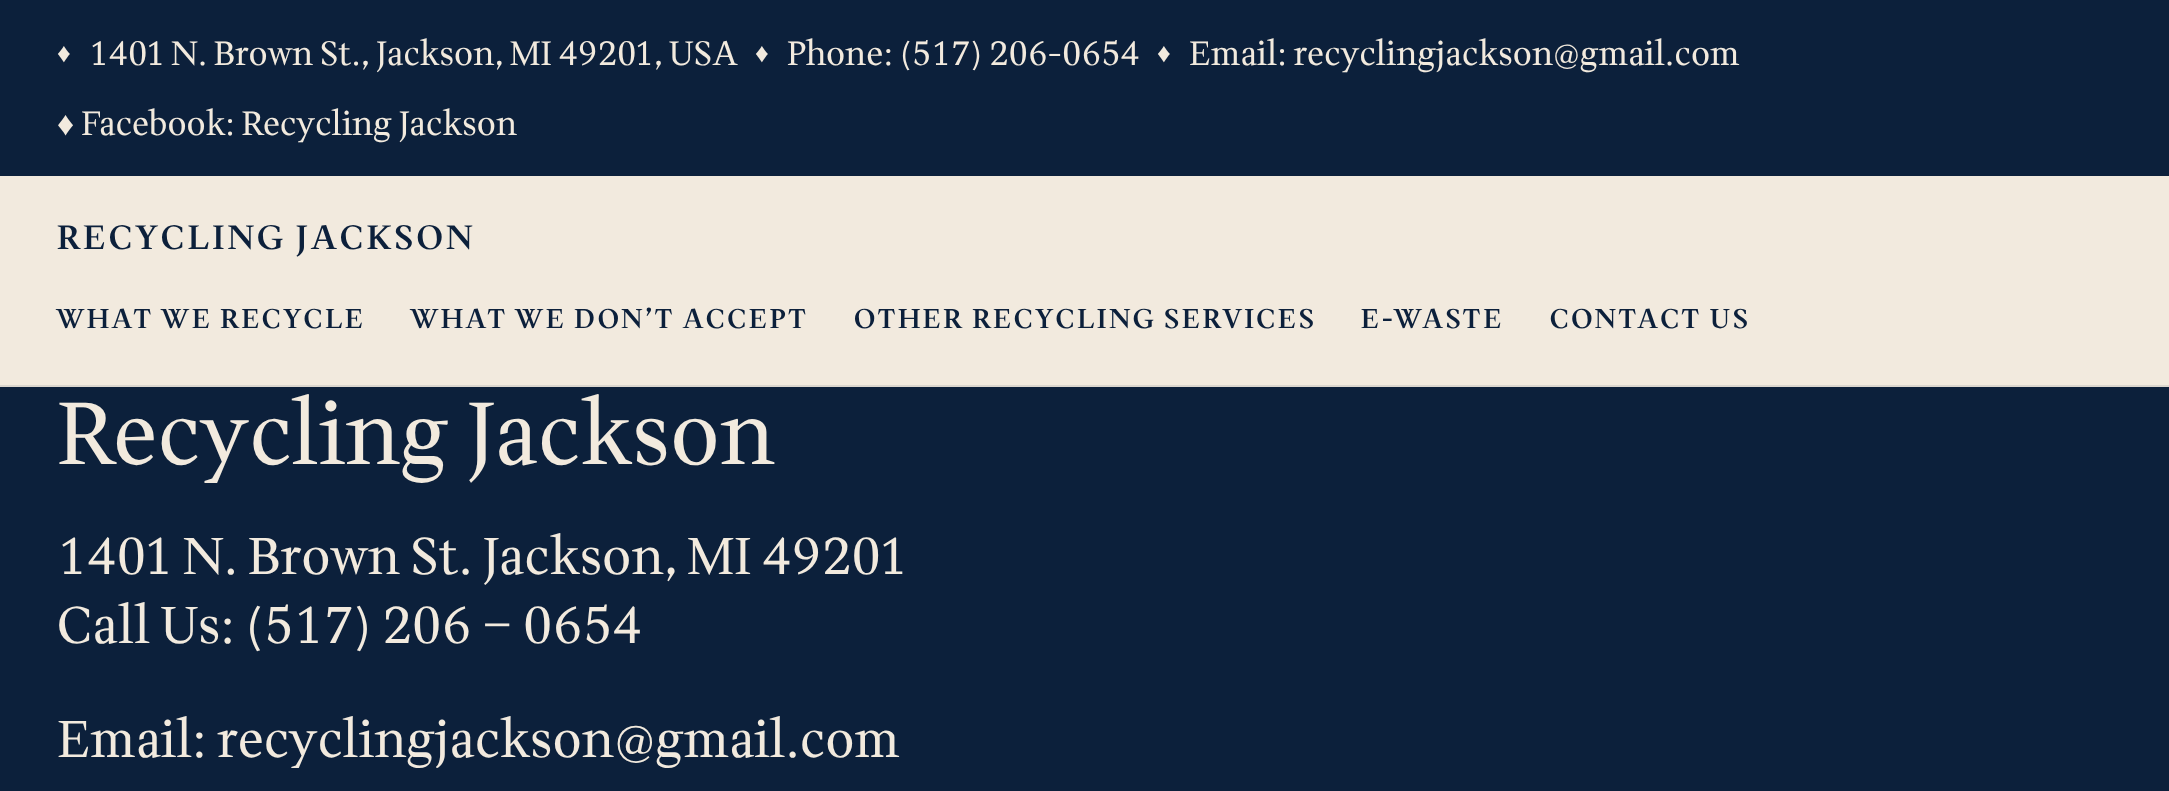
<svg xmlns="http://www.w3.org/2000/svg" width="2169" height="791">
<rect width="100%" height="100%" fill="#0c203b"/>
<text x="57" y="62" style="font-family:Liberation Serif;font-size:27px;fill:#f2eade">♦</text>
<text x="89" y="65" style="font-family:Wittgenstein;font-size:33.6px;fill:#f2eade">1401 N. Brown St., Jackson, MI 49201, USA</text>
<text x="755" y="62" style="font-family:Liberation Serif;font-size:27px;fill:#f2eade">♦</text>
<text x="787" y="65" style="font-family:Wittgenstein;font-size:33.6px;fill:#f2eade">Phone: (517) 206-0654</text>
<text x="1157" y="62" style="font-family:Liberation Serif;font-size:27px;fill:#f2eade">♦</text>
<text x="1189" y="65" style="font-family:Wittgenstein;font-size:33.6px;fill:#f2eade">Email: recyclingjackson@gmail.com</text>
<text x="57" y="135" style="font-family:Liberation Serif;font-size:33.6px;fill:#f2eade">♦</text>
<text x="81" y="135" style="font-family:Wittgenstein;font-size:33.6px;fill:#f2eade">Facebook: Recycling Jackson</text>
<rect y="176" width="2169" height="209" fill="#f2eade"/>
<rect y="385" width="2169" height="2" fill="#dbd6ce"/>
<text x="57" y="249" style="font-family:Wittgenstein;font-size:33.6px;font-weight:600;letter-spacing:3.4px;fill:#0c203b">RECYCLING JACKSON</text>
<text x="57" y="328" style="font-family:Wittgenstein;font-size:27px;font-weight:600;letter-spacing:2.7px;fill:#0c203b">WHAT WE RECYCLE</text>
<text x="411" y="328" style="font-family:Wittgenstein;font-size:27px;font-weight:600;letter-spacing:2.7px;fill:#0c203b">WHAT WE DON’T ACCEPT</text>
<text x="854" y="328" style="font-family:Wittgenstein;font-size:27px;font-weight:600;letter-spacing:2.7px;fill:#0c203b">OTHER RECYCLING SERVICES</text>
<text x="1361" y="328" style="font-family:Wittgenstein;font-size:27px;font-weight:600;letter-spacing:2.7px;fill:#0c203b">E-WASTE</text>
<text x="1550" y="328" style="font-family:Wittgenstein;font-size:27px;font-weight:600;letter-spacing:2.7px;fill:#0c203b">CONTACT US</text>
<text x="57" y="464" style="font-family:Wittgenstein;font-size:87.5px;fill:#f2eade">Recycling Jackson</text>
<text x="57" y="574" style="font-family:Wittgenstein;font-size:51.4px;fill:#f2eade">1401 N. Brown St. Jackson, MI 49201</text>
<text x="57" y="643" style="font-family:Wittgenstein;font-size:51.4px;fill:#f2eade">Call Us: (517) 206 – 0654</text>
<text x="57" y="757" style="font-family:Wittgenstein;font-size:51.4px;fill:#f2eade">Email: recyclingjackson@gmail.com</text>
</svg>
